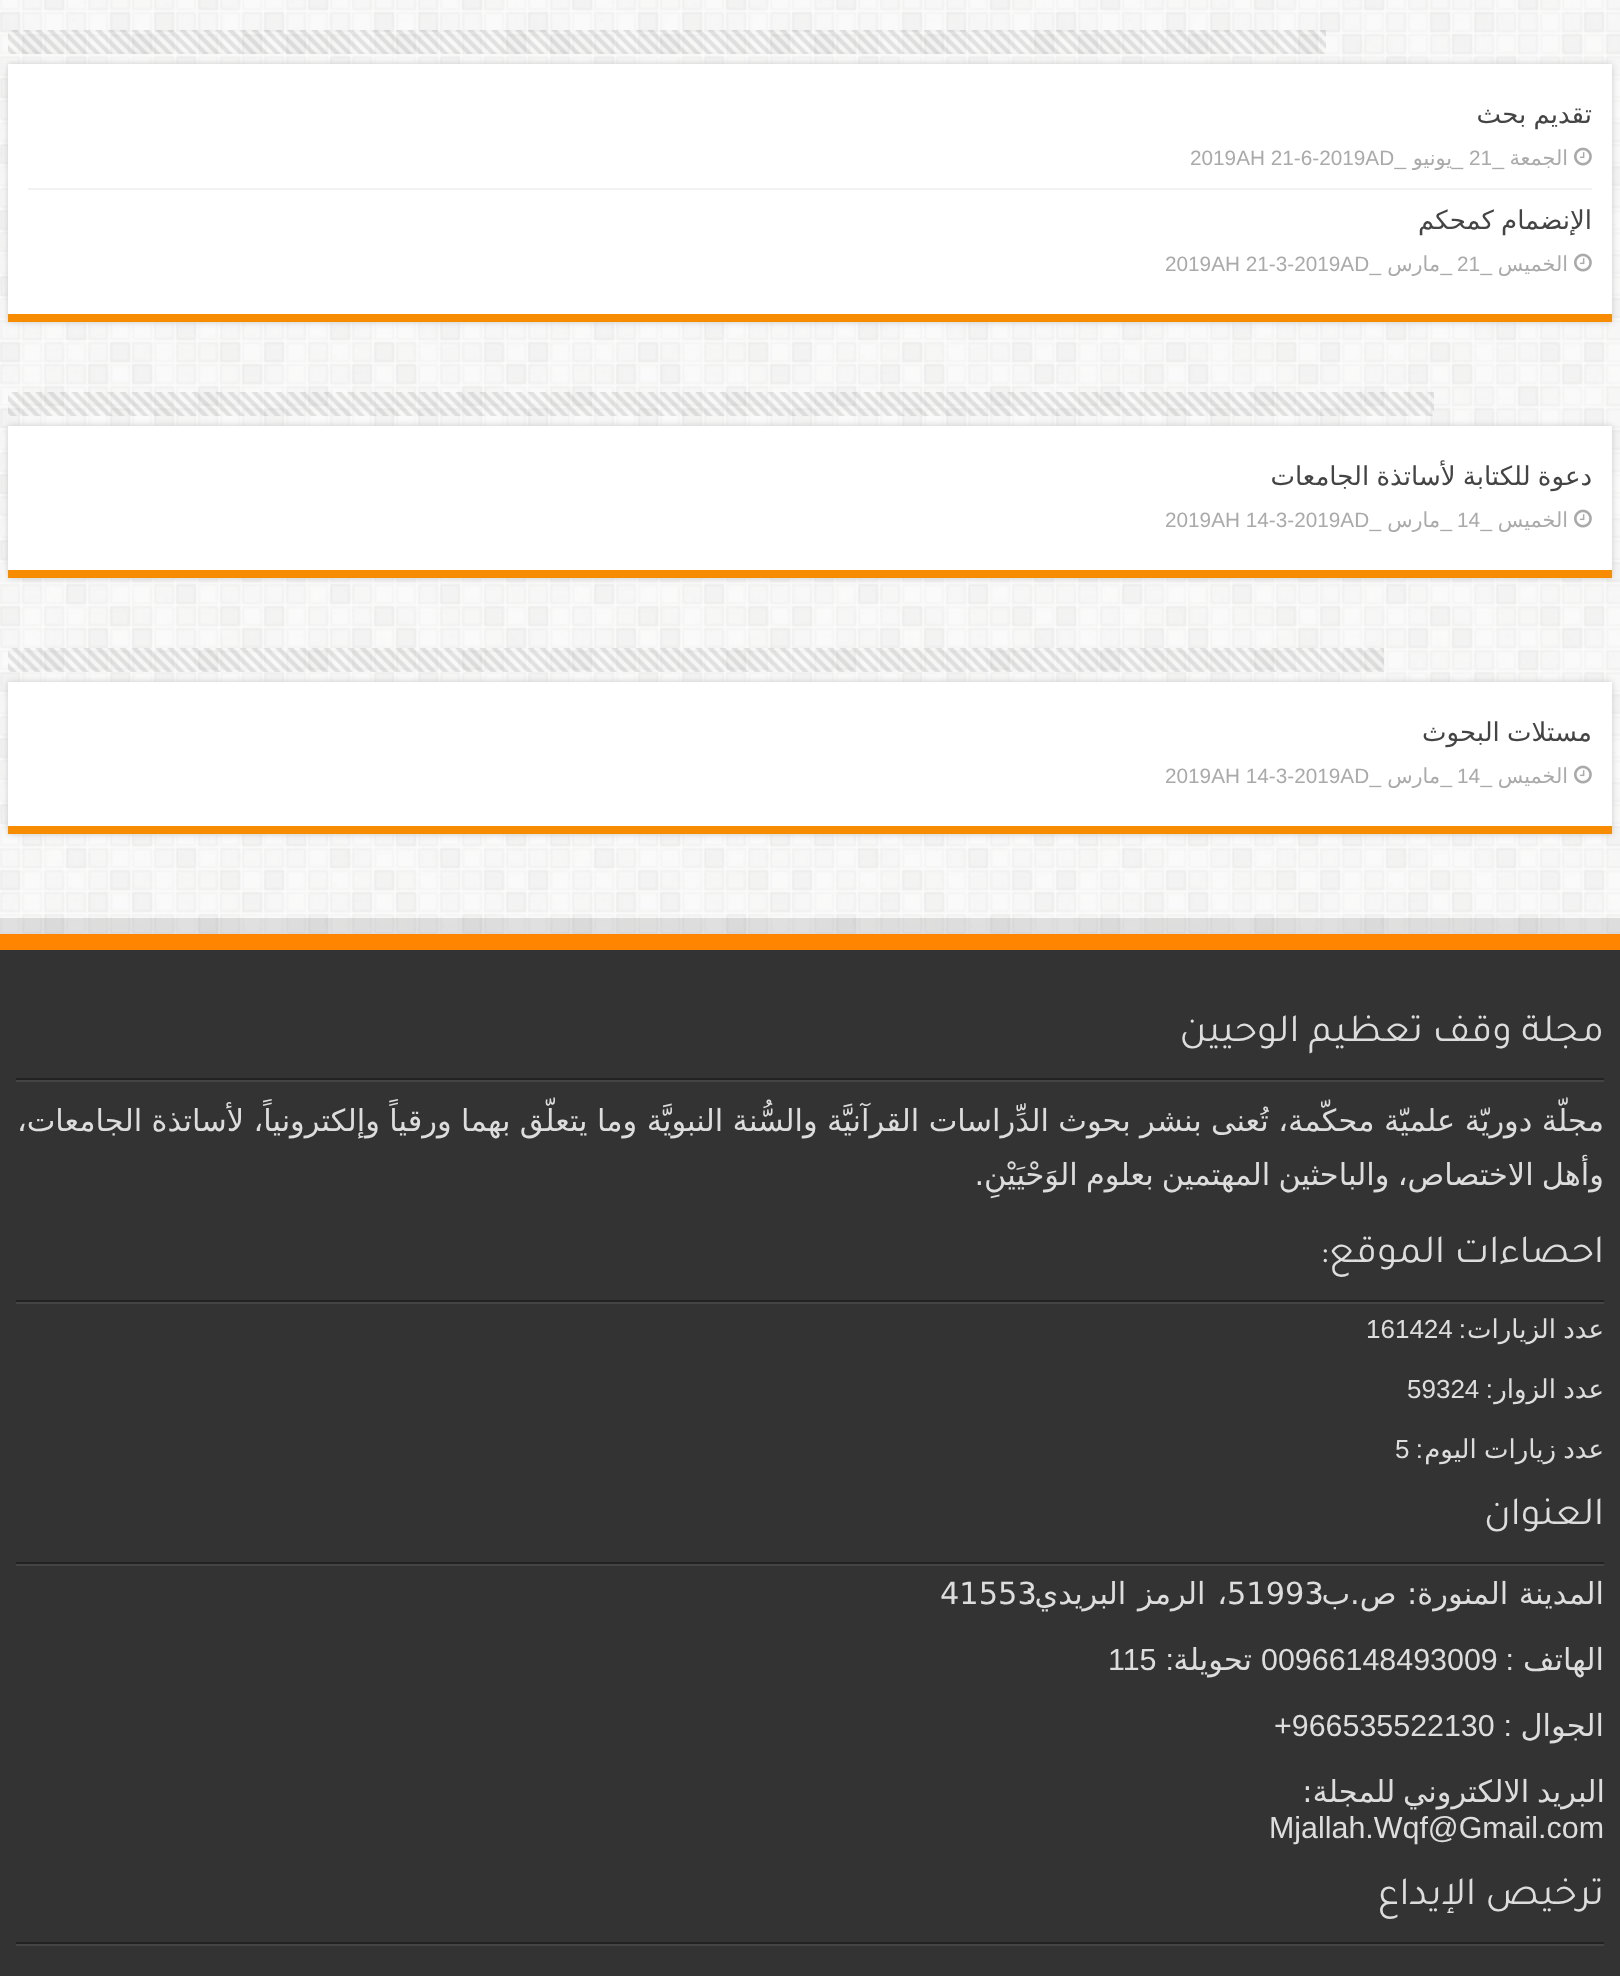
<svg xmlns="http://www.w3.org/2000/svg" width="1620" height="1976">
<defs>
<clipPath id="clip1"><rect x="28" y="446" width="1564" height="104"/></clipPath>
</defs>
<rect width="100%" height="100%" fill="#fff"/>
<image x="0" y="0" width="1620" height="934" href="media/1.png"/>
<image x="8" y="30" width="1318" height="24" href="media/2.png"/>
<rect x="8" y="64" width="1604" height="258" fill="#cacaca" filter="blur(3px)"/>
<rect x="8" y="64" width="1604" height="250" fill="#fff"/>
<rect x="8" y="314" width="1604" height="8" fill="#f88c00"/>
<rect x="28" y="188" width="1564" height="2" fill="#f2f2f2"/>
<text x="1592" y="123" word-spacing="-1" style="font-family:DejaVu Sans;font-size:26px;direction:rtl;fill:#444">تقديم بحث</text>
<image x="1574" y="147" width="18" height="19" href="media/3.png"/>
<text x="1568" y="165" style="font-family:DejaVu Sans;font-size:20.75px;direction:rtl;fill:#aaa">الجمعة</text>
<text x="1504" y="165" style="font-family:Liberation Sans;font-size:20.75px;direction:rtl;fill:#aaa">_</text>
<text x="1469" y="165" style="font-family:Liberation Sans;font-size:20.75px;fill:#aaa">21</text>
<text x="1463" y="165" style="font-family:Liberation Sans;font-size:20.75px;direction:rtl;fill:#aaa">_</text>
<text x="1452" y="165" style="font-family:DejaVu Sans;font-size:20.75px;direction:rtl;fill:#aaa">يونيو</text>
<text x="1406" y="165" style="font-family:Liberation Sans;font-size:20.75px;direction:rtl;fill:#aaa">_</text>
<text x="1190" y="165" style="font-family:Liberation Sans;font-size:20.75px;fill:#aaa">2019AH 21-6-2019AD</text>
<text x="1592" y="229" word-spacing="-1" style="font-family:DejaVu Sans;font-size:26px;direction:rtl;fill:#444">الإنضمام كمحكم</text>
<image x="1574" y="253" width="18" height="19" href="media/3.png"/>
<text x="1568" y="271" style="font-family:DejaVu Sans;font-size:20.75px;direction:rtl;fill:#aaa">الخميس</text>
<text x="1457" y="271" style="font-family:Liberation Sans;font-size:20.75px;fill:#aaa">21</text>
<text x="1440" y="271" style="font-family:DejaVu Sans;font-size:20.75px;direction:rtl;fill:#aaa">مارس</text>
<text x="1165" y="271" style="font-family:Liberation Sans;font-size:20.75px;fill:#aaa">2019AH 21-3-2019AD</text>
<text x="1492" y="271" style="font-family:Liberation Sans;font-size:20.75px;direction:rtl;fill:#aaa">_</text>
<text x="1452" y="271" style="font-family:Liberation Sans;font-size:20.75px;direction:rtl;fill:#aaa">_</text>
<text x="1381" y="271" style="font-family:Liberation Sans;font-size:20.75px;direction:rtl;fill:#aaa">_</text>
<image x="8" y="392" width="1426" height="24" href="media/4.png"/>
<rect x="8" y="426" width="1604" height="152" fill="#cacaca" filter="blur(3px)"/>
<rect x="8" y="426" width="1604" height="144" fill="#fff"/>
<rect x="8" y="570" width="1604" height="8" fill="#f88c00"/>
<g clip-path="url(#clip1)">
<text x="1592" y="485" word-spacing="-1" style="font-family:DejaVu Sans;font-size:26px;direction:rtl;fill:#444">دعوة للكتابة لأساتذة الجامعات</text>
</g>
<image x="1574" y="509" width="18" height="19" href="media/3.png"/>
<text x="1568" y="527" style="font-family:DejaVu Sans;font-size:20.75px;direction:rtl;fill:#aaa">الخميس</text>
<text x="1457" y="527" style="font-family:Liberation Sans;font-size:20.75px;fill:#aaa">14</text>
<text x="1440" y="527" style="font-family:DejaVu Sans;font-size:20.75px;direction:rtl;fill:#aaa">مارس</text>
<text x="1165" y="527" style="font-family:Liberation Sans;font-size:20.75px;fill:#aaa">2019AH 14-3-2019AD</text>
<text x="1492" y="527" style="font-family:Liberation Sans;font-size:20.75px;direction:rtl;fill:#aaa">_</text>
<text x="1452" y="527" style="font-family:Liberation Sans;font-size:20.75px;direction:rtl;fill:#aaa">_</text>
<text x="1381" y="527" style="font-family:Liberation Sans;font-size:20.75px;direction:rtl;fill:#aaa">_</text>
<image x="8" y="648" width="1376" height="24" href="media/5.png"/>
<rect x="8" y="682" width="1604" height="152" fill="#cacaca" filter="blur(3px)"/>
<rect x="8" y="682" width="1604" height="144" fill="#fff"/>
<rect x="8" y="826" width="1604" height="8" fill="#f88c00"/>
<text x="1592" y="741" word-spacing="-1" style="font-family:DejaVu Sans;font-size:26px;direction:rtl;fill:#444">مستلات البحوث</text>
<image x="1574" y="765" width="18" height="19" href="media/3.png"/>
<text x="1568" y="783" style="font-family:DejaVu Sans;font-size:20.75px;direction:rtl;fill:#aaa">الخميس</text>
<text x="1457" y="783" style="font-family:Liberation Sans;font-size:20.75px;fill:#aaa">14</text>
<text x="1440" y="783" style="font-family:DejaVu Sans;font-size:20.75px;direction:rtl;fill:#aaa">مارس</text>
<text x="1165" y="783" style="font-family:Liberation Sans;font-size:20.75px;fill:#aaa">2019AH 14-3-2019AD</text>
<text x="1492" y="783" style="font-family:Liberation Sans;font-size:20.75px;direction:rtl;fill:#aaa">_</text>
<text x="1452" y="783" style="font-family:Liberation Sans;font-size:20.75px;direction:rtl;fill:#aaa">_</text>
<text x="1381" y="783" style="font-family:Liberation Sans;font-size:20.75px;direction:rtl;fill:#aaa">_</text>
<rect y="918" width="1620" height="16" fill="#0000001a"/>
<rect y="950" width="1620" height="1026" fill="#333"/>
<rect y="934" width="1620" height="16" fill="#ff8500"/>
<rect x="16" y="1078" width="1588" height="2" fill="#222"/>
<text x="1604" y="1041" style="font-family:Tajawal;font-size:40px;direction:rtl;fill:#ddd">مجلة وقف تعظيم الوحيين</text>
<rect x="16" y="1080" width="1588" height="2" fill="#444"/>
<text x="1604" y="1131" word-spacing="-0.25" style="font-family:DejaVu Sans;font-size:30.42px;direction:rtl;fill:#ddd">مجلّة دوريّة علميّة محكّمة، تُعنى بنشر بحوث الدِّراسات القرآنيَّة والسُّنة النبويَّة وما يتعلّق بهما ورقياً وإلكترونياً، لأساتذة الجامعات،</text>
<text x="1604" y="1185" word-spacing="-1.5" style="font-family:DejaVu Sans;font-size:30.42px;direction:rtl;fill:#ddd">وأهل الاختصاص، والباحثين المهتمين بعلوم الوَحْيَيْنِ.</text>
<rect x="16" y="1300" width="1588" height="2" fill="#222"/>
<text x="1604" y="1262" style="font-family:Tajawal;font-size:40px;direction:rtl;fill:#ddd">احصاءات الموقع:</text>
<rect x="16" y="1302" width="1588" height="2" fill="#444"/>
<text x="1604" y="1338" word-spacing="-1" style="font-family:DejaVu Sans;font-size:26px;direction:rtl;fill:#ddd">عدد الزيارات</text>
<text x="1466" y="1338" style="font-family:Liberation Sans;font-size:26px;direction:rtl;fill:#ddd">:</text>
<text x="1366" y="1338" style="font-family:Liberation Sans;font-size:26px;fill:#ddd">161424</text>
<text x="1604" y="1398" word-spacing="-1" style="font-family:DejaVu Sans;font-size:26px;direction:rtl;fill:#ddd">عدد الزوار</text>
<text x="1493" y="1398" style="font-family:Liberation Sans;font-size:26px;direction:rtl;fill:#ddd">:</text>
<text x="1407" y="1398" style="font-family:Liberation Sans;font-size:26px;fill:#ddd">59324</text>
<text x="1604" y="1458" word-spacing="-1" style="font-family:DejaVu Sans;font-size:26px;direction:rtl;fill:#ddd">عدد زيارات اليوم</text>
<text x="1423" y="1458" style="font-family:Liberation Sans;font-size:26px;direction:rtl;fill:#ddd">:</text>
<text x="1395" y="1458" style="font-family:Liberation Sans;font-size:26px;fill:#ddd">5</text>
<rect x="16" y="1562" width="1588" height="2" fill="#222"/>
<text x="1604" y="1524" style="font-family:Tajawal;font-size:40px;direction:rtl;fill:#ddd">العنوان</text>
<rect x="16" y="1564" width="1588" height="2" fill="#444"/>
<text x="1227" y="1604" style="font-family:DejaVu Sans;font-size:30.42px;fill:#ddd">51993</text>
<text x="1604" y="1604" word-spacing="1" style="font-family:DejaVu Sans;font-size:30.42px;direction:rtl;fill:#ddd">المدينة المنورة: ص.ب:</text>
<text x="940" y="1604" style="font-family:DejaVu Sans;font-size:30.42px;fill:#ddd">41553</text>
<text x="1227" y="1604" word-spacing="2" style="font-family:DejaVu Sans;font-size:30.42px;direction:rtl;fill:#ddd">، الرمز البريدي:</text>
<text x="1604" y="1670" style="font-family:DejaVu Sans;font-size:30.42px;direction:rtl;fill:#ddd">الهاتف</text>
<text x="1514" y="1670" style="font-family:Liberation Sans;font-size:30.42px;direction:rtl;fill:#ddd">:</text>
<text x="1261" y="1670" style="font-family:Liberation Sans;font-size:30.42px;fill:#ddd">00966148493009</text>
<text x="1252" y="1670" style="font-family:DejaVu Sans;font-size:30.42px;direction:rtl;fill:#ddd">تحويلة</text>
<text x="1174" y="1670" style="font-family:Liberation Sans;font-size:30.42px;direction:rtl;fill:#ddd">:</text>
<text x="1108" y="1670" style="font-family:Liberation Sans;font-size:30.42px;fill:#ddd">115</text>
<text x="1604" y="1736" style="font-family:DejaVu Sans;font-size:30.42px;direction:rtl;fill:#ddd">الجوال</text>
<text x="1512" y="1736" style="font-family:Liberation Sans;font-size:30.42px;direction:rtl;fill:#ddd">:</text>
<text x="1274" y="1736" style="font-family:Liberation Sans;font-size:30.42px;fill:#ddd">+966535522130</text>
<text x="1605" y="1802" word-spacing="-2" style="font-family:DejaVu Sans;font-size:30.42px;direction:rtl;fill:#ddd">البريد الالكتروني للمجلة:</text>
<text x="1269" y="1838" style="font-family:Liberation Sans;font-size:30.42px;fill:#ddd">Mjallah.Wqf@Gmail.com</text>
<rect x="16" y="1942" width="1588" height="2" fill="#222"/>
<text x="1604" y="1904" style="font-family:Tajawal;font-size:40px;direction:rtl;fill:#ddd">ترخيص الإيداع</text>
<rect x="16" y="1944" width="1588" height="2" fill="#444"/>
</svg>
